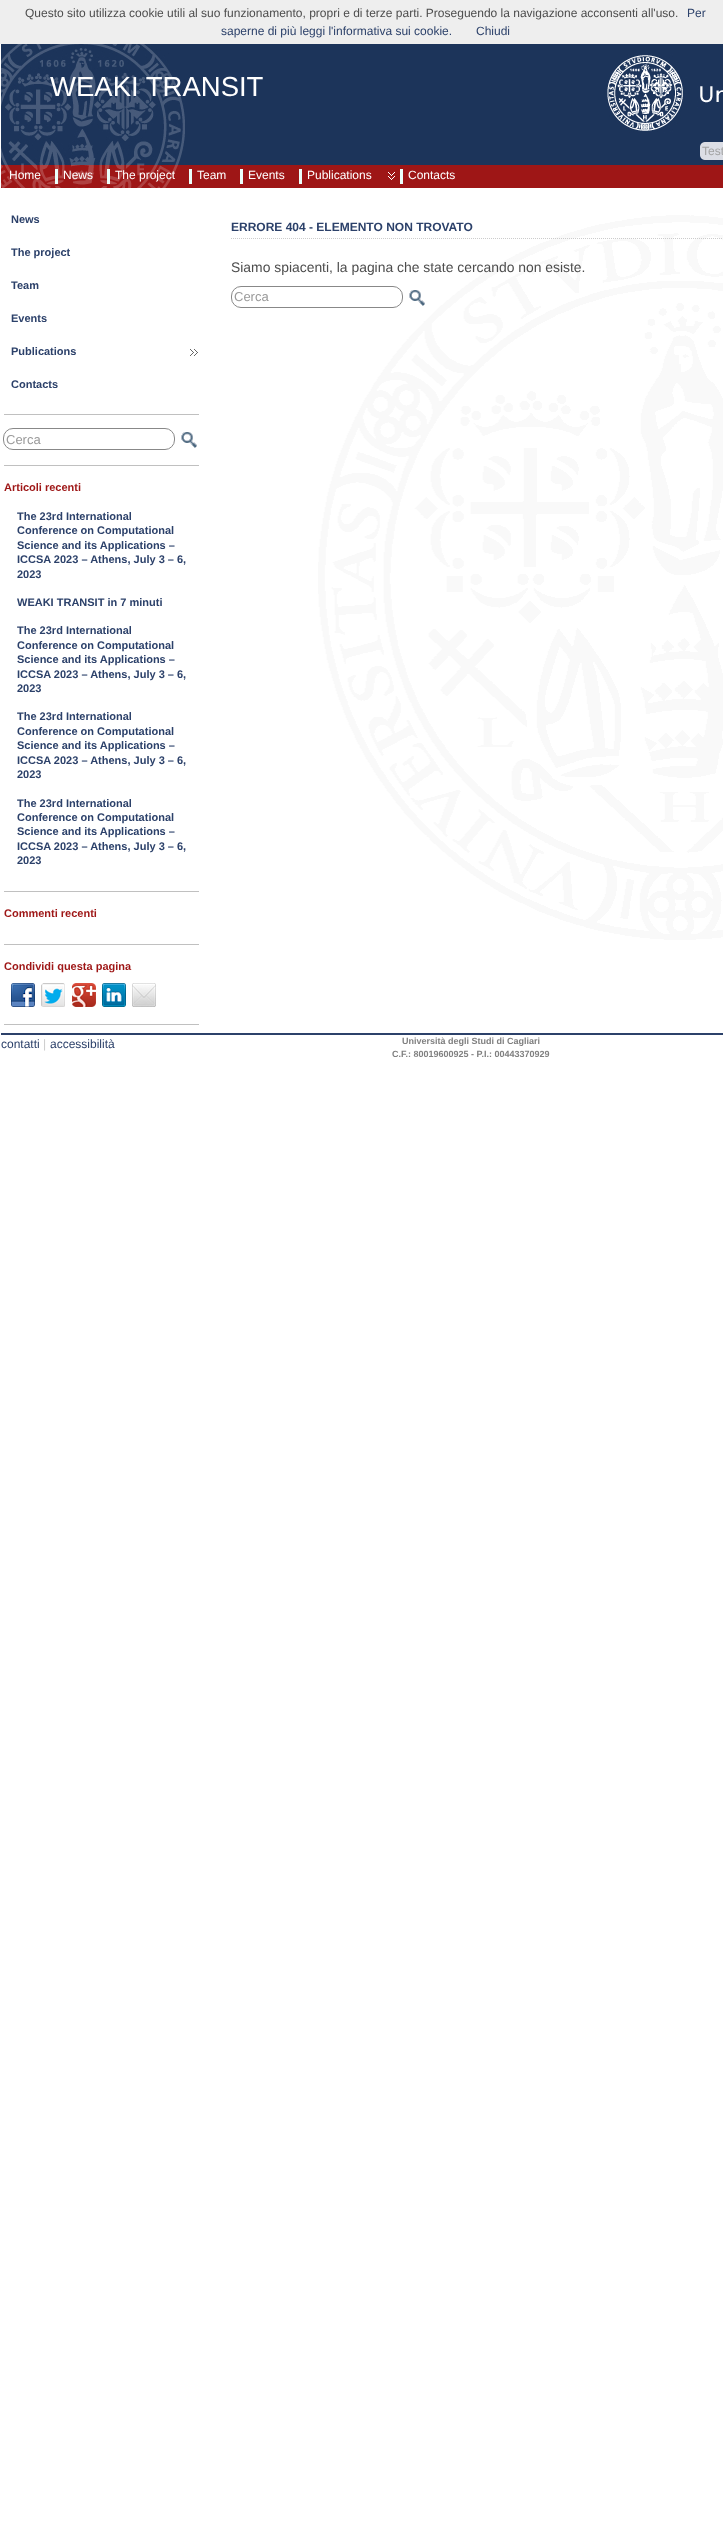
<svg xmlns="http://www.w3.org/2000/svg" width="723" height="2546">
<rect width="100%" height="100%" fill="#fff"/>
<image x="318" y="215" width="405" height="725" href="media/1.png"/>
<rect width="723" height="44" fill="#eee"/>
<text x="25" y="17" style="font-family:Liberation Sans;font-size:12px;fill:#4d4d4d">Questo sito utilizza cookie utili al suo funzionamento, propri e di terze parti. Proseguendo la navigazione acconsenti all'uso.</text>
<text x="687" y="17" style="font-family:Liberation Sans;font-size:12px;fill:#2c416a">Per</text>
<text x="221" y="35" style="font-family:Liberation Sans;font-size:12px;fill:#2c416a">saperne di più leggi l'informativa sui cookie.</text>
<text x="476" y="35" style="font-family:Liberation Sans;font-size:12px;fill:#2c416a">Chiudi</text>
<image x="1" y="44" width="722" height="144" href="media/2.png"/>
<text x="50" y="96" style="font-family:Liberation Sans;font-size:27.5px;fill:#fff">WEAKI TRANSIT</text>
<image x="607" y="55" width="116" height="76" href="media/3.png"/>
<image x="700" y="142" width="23" height="18" href="media/4.png"/>
<text x="702" y="155" style="font-family:Liberation Sans;font-size:12px;fill:#a3a3a3">Test</text>
<text x="9" y="179" style="font-family:Liberation Sans;font-size:12px;fill:#fff">Home</text>
<rect x="55" y="169" width="3" height="15" fill="#eafffb"/>
<text x="63" y="179" style="font-family:Liberation Sans;font-size:12px;fill:#fff">News</text>
<rect x="107" y="169" width="3" height="15" fill="#eafffb"/>
<text x="115" y="179" style="font-family:Liberation Sans;font-size:12px;fill:#fff">The project</text>
<rect x="189" y="169" width="3" height="15" fill="#eafffb"/>
<text x="197" y="179" style="font-family:Liberation Sans;font-size:12px;fill:#fff">Team</text>
<rect x="240" y="169" width="3" height="15" fill="#eafffb"/>
<text x="248" y="179" style="font-family:Liberation Sans;font-size:12px;fill:#fff">Events</text>
<rect x="299" y="169" width="3" height="15" fill="#eafffb"/>
<text x="307" y="179" style="font-family:Liberation Sans;font-size:12px;fill:#fff">Publications</text>
<image x="388" y="172" width="7" height="8" href="media/5.png"/>
<rect x="400" y="169" width="3" height="15" fill="#eafffb"/>
<text x="408" y="179" style="font-family:Liberation Sans;font-size:12px;fill:#fff">Contacts</text>
<rect x="4" y="414" width="195" height="1" fill="#c0c0c0"/>
<text x="11" y="223" style="font-family:Liberation Sans;font-size:11px;font-weight:bold;fill:#2c416a">News</text>
<text x="11" y="256" style="font-family:Liberation Sans;font-size:11px;font-weight:bold;fill:#2c416a">The project</text>
<text x="11" y="289" style="font-family:Liberation Sans;font-size:11px;font-weight:bold;fill:#2c416a">Team</text>
<text x="11" y="322" style="font-family:Liberation Sans;font-size:11px;font-weight:bold;fill:#2c416a">Events</text>
<text x="11" y="355" style="font-family:Liberation Sans;font-size:11px;font-weight:bold;fill:#2c416a">Publications</text>
<image x="190" y="349" width="8" height="7" href="media/6.png"/>
<text x="11" y="388" style="font-family:Liberation Sans;font-size:11px;font-weight:bold;fill:#2c416a">Contacts</text>
<rect x="4" y="465" width="195" height="1" fill="#c0c0c0"/>
<rect x="3.5" y="428.5" width="171" height="21" rx="9.5" fill="none" stroke="#888"/>
<text x="6" y="444" style="font-family:Liberation Sans;font-size:13px;fill:#999">Cerca</text>
<image x="181" y="432" width="16" height="16" href="media/7.png"/>
<rect x="4" y="891" width="195" height="1" fill="#c0c0c0"/>
<text x="4" y="491" style="font-family:Liberation Sans;font-size:11px;font-weight:bold;fill:#9e1616">Articoli recenti</text>
<text x="17" y="520" style="font-family:Liberation Sans;font-size:11px;font-weight:bold;fill:#2c416a">The 23rd International</text>
<text x="17" y="534" style="font-family:Liberation Sans;font-size:11px;font-weight:bold;fill:#2c416a">Conference on Computational</text>
<text x="17" y="549" style="font-family:Liberation Sans;font-size:11px;font-weight:bold;fill:#2c416a">Science and its Applications –</text>
<text x="17" y="563" style="font-family:Liberation Sans;font-size:11px;font-weight:bold;fill:#2c416a">ICCSA 2023 – Athens, July 3 – 6,</text>
<text x="17" y="578" style="font-family:Liberation Sans;font-size:11px;font-weight:bold;fill:#2c416a">2023</text>
<text x="17" y="606" style="font-family:Liberation Sans;font-size:11px;font-weight:bold;fill:#2c416a">WEAKI TRANSIT in 7 minuti</text>
<text x="17" y="634" style="font-family:Liberation Sans;font-size:11px;font-weight:bold;fill:#2c416a">The 23rd International</text>
<text x="17" y="649" style="font-family:Liberation Sans;font-size:11px;font-weight:bold;fill:#2c416a">Conference on Computational</text>
<text x="17" y="663" style="font-family:Liberation Sans;font-size:11px;font-weight:bold;fill:#2c416a">Science and its Applications –</text>
<text x="17" y="678" style="font-family:Liberation Sans;font-size:11px;font-weight:bold;fill:#2c416a">ICCSA 2023 – Athens, July 3 – 6,</text>
<text x="17" y="692" style="font-family:Liberation Sans;font-size:11px;font-weight:bold;fill:#2c416a">2023</text>
<text x="17" y="720" style="font-family:Liberation Sans;font-size:11px;font-weight:bold;fill:#2c416a">The 23rd International</text>
<text x="17" y="735" style="font-family:Liberation Sans;font-size:11px;font-weight:bold;fill:#2c416a">Conference on Computational</text>
<text x="17" y="749" style="font-family:Liberation Sans;font-size:11px;font-weight:bold;fill:#2c416a">Science and its Applications –</text>
<text x="17" y="764" style="font-family:Liberation Sans;font-size:11px;font-weight:bold;fill:#2c416a">ICCSA 2023 – Athens, July 3 – 6,</text>
<text x="17" y="778" style="font-family:Liberation Sans;font-size:11px;font-weight:bold;fill:#2c416a">2023</text>
<text x="17" y="807" style="font-family:Liberation Sans;font-size:11px;font-weight:bold;fill:#2c416a">The 23rd International</text>
<text x="17" y="821" style="font-family:Liberation Sans;font-size:11px;font-weight:bold;fill:#2c416a">Conference on Computational</text>
<text x="17" y="835" style="font-family:Liberation Sans;font-size:11px;font-weight:bold;fill:#2c416a">Science and its Applications –</text>
<text x="17" y="850" style="font-family:Liberation Sans;font-size:11px;font-weight:bold;fill:#2c416a">ICCSA 2023 – Athens, July 3 – 6,</text>
<text x="17" y="864" style="font-family:Liberation Sans;font-size:11px;font-weight:bold;fill:#2c416a">2023</text>
<rect x="4" y="944" width="195" height="1" fill="#c0c0c0"/>
<text x="4" y="917" style="font-family:Liberation Sans;font-size:11px;font-weight:bold;fill:#9e1616">Commenti recenti</text>
<rect x="4" y="1024" width="195" height="1" fill="#c0c0c0"/>
<text x="4" y="970" style="font-family:Liberation Sans;font-size:11px;font-weight:bold;fill:#9e1616">Condividi questa pagina</text>
<image x="11" y="983" width="24" height="24" href="media/8.png"/>
<image x="41" y="983" width="24" height="24" href="media/9.png"/>
<image x="72" y="983" width="24" height="24" href="media/10.png"/>
<image x="102" y="983" width="24" height="24" href="media/11.png"/>
<image x="132" y="983" width="24" height="24" href="media/12.png"/>
<path d="M231 238.5h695" fill="none" stroke="#ccc" stroke-dasharray="1 1"/>
<text x="231" y="231" style="font-family:Liberation Sans;font-size:12px;font-weight:bold;fill:#2c416a">ERRORE 404 - ELEMENTO NON TROVATO</text>
<text x="231" y="272" style="font-family:Liberation Sans;font-size:13.9px;fill:#4d4d4d">Siamo spiacenti, la pagina che state cercando non esiste.</text>
<rect x="231.5" y="286.5" width="171" height="21" rx="9.5" fill="none" stroke="#888"/>
<text x="234" y="301" style="font-family:Liberation Sans;font-size:13px;fill:#999">Cerca</text>
<image x="409" y="290" width="16" height="16" href="media/7.png"/>
<rect x="1" y="1033" width="722" height="2" fill="#2c416a"/>
<text x="1" y="1048" style="font-family:Liberation Sans;font-size:12px;fill:#2c416a">contatti</text>
<text x="43" y="1048" style="font-family:Liberation Sans;font-size:12px;fill:#ccc">|</text>
<text x="50" y="1048" style="font-family:Liberation Sans;font-size:12px;fill:#2c416a">accessibilità</text>
<text x="402" y="1044" style="font-family:Liberation Sans;font-size:9px;font-weight:bold;fill:#808080">Università degli Studi di Cagliari</text>
<text x="392" y="1057" style="font-family:Liberation Sans;font-size:9px;font-weight:bold;fill:#808080">C.F.: 80019600925 - P.I.: 00443370929</text>
</svg>
